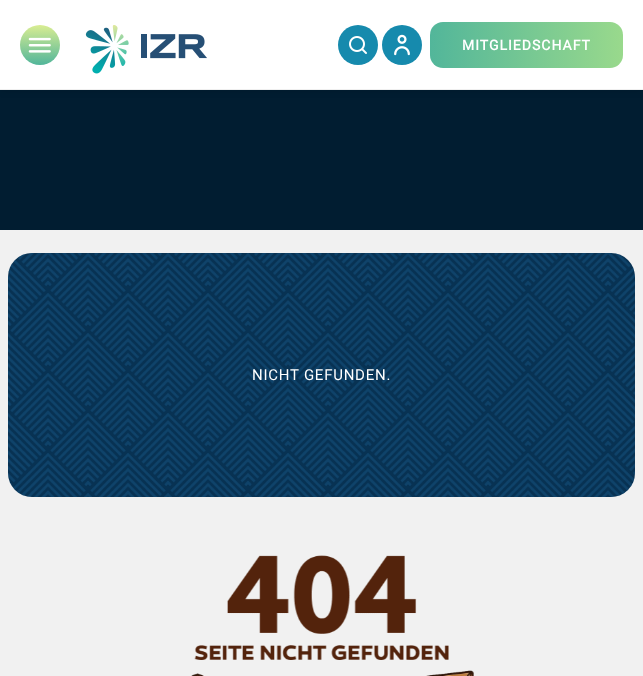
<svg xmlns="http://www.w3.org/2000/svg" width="643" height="676">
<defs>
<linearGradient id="g1" gradientUnits="userSpaceOnUse" x1="40" y1="65" x2="40" y2="25"><stop offset="0" stop-color="#52b69a"/><stop offset="1" stop-color="#d9ed92"/></linearGradient>
<linearGradient id="g2" gradientUnits="userSpaceOnUse" x1="430" y1="45" x2="623" y2="45"><stop offset="0" stop-color="#52b69a"/><stop offset="1" stop-color="#99d98c"/></linearGradient>
</defs>
<rect width="100%" height="100%" fill="#f1f1f1"/>
<rect y="90" width="643" height="140" fill="#011d31"/>
<rect y="2" width="643" height="90" fill="#00000014" filter="blur(3px)"/>
<rect width="643" height="89" fill="#fff"/>
<rect y="89" width="643" height="1" fill="#efefef"/>
<circle cx="40" cy="45" r="20" fill="url(#g1)"/>
<image x="28" y="37" width="23" height="16" href="media/1.png"/>
<image x="85" y="25" width="122" height="49" href="media/2.png"/>
<circle cx="358" cy="45" r="20" fill="#168aad"/>
<image x="349" y="36" width="18" height="18" href="media/3.png"/>
<circle cx="402" cy="45" r="20" fill="#168aad"/>
<image x="394" y="34" width="16" height="22" href="media/4.png"/>
<rect x="430" y="22" width="193" height="46" rx="13" fill="url(#g2)"/>
<text x="462" y="50" style="font-family:Roboto;font-size:14px;font-weight:bold;letter-spacing:1px;fill:#fff">MITGLIEDSCHAFT</text>
<rect x="8" y="253" width="627" height="244" rx="24" fill="#083253"/>
<image x="8" y="253" width="627" height="244" href="media/5.png"/>
<text x="252" y="380" style="font-family:Roboto;font-size:15px;letter-spacing:0.75px;fill:#fff">NICHT GEFUNDEN.</text>
<image x="191" y="555" width="283" height="121" href="media/6.png"/>
</svg>
